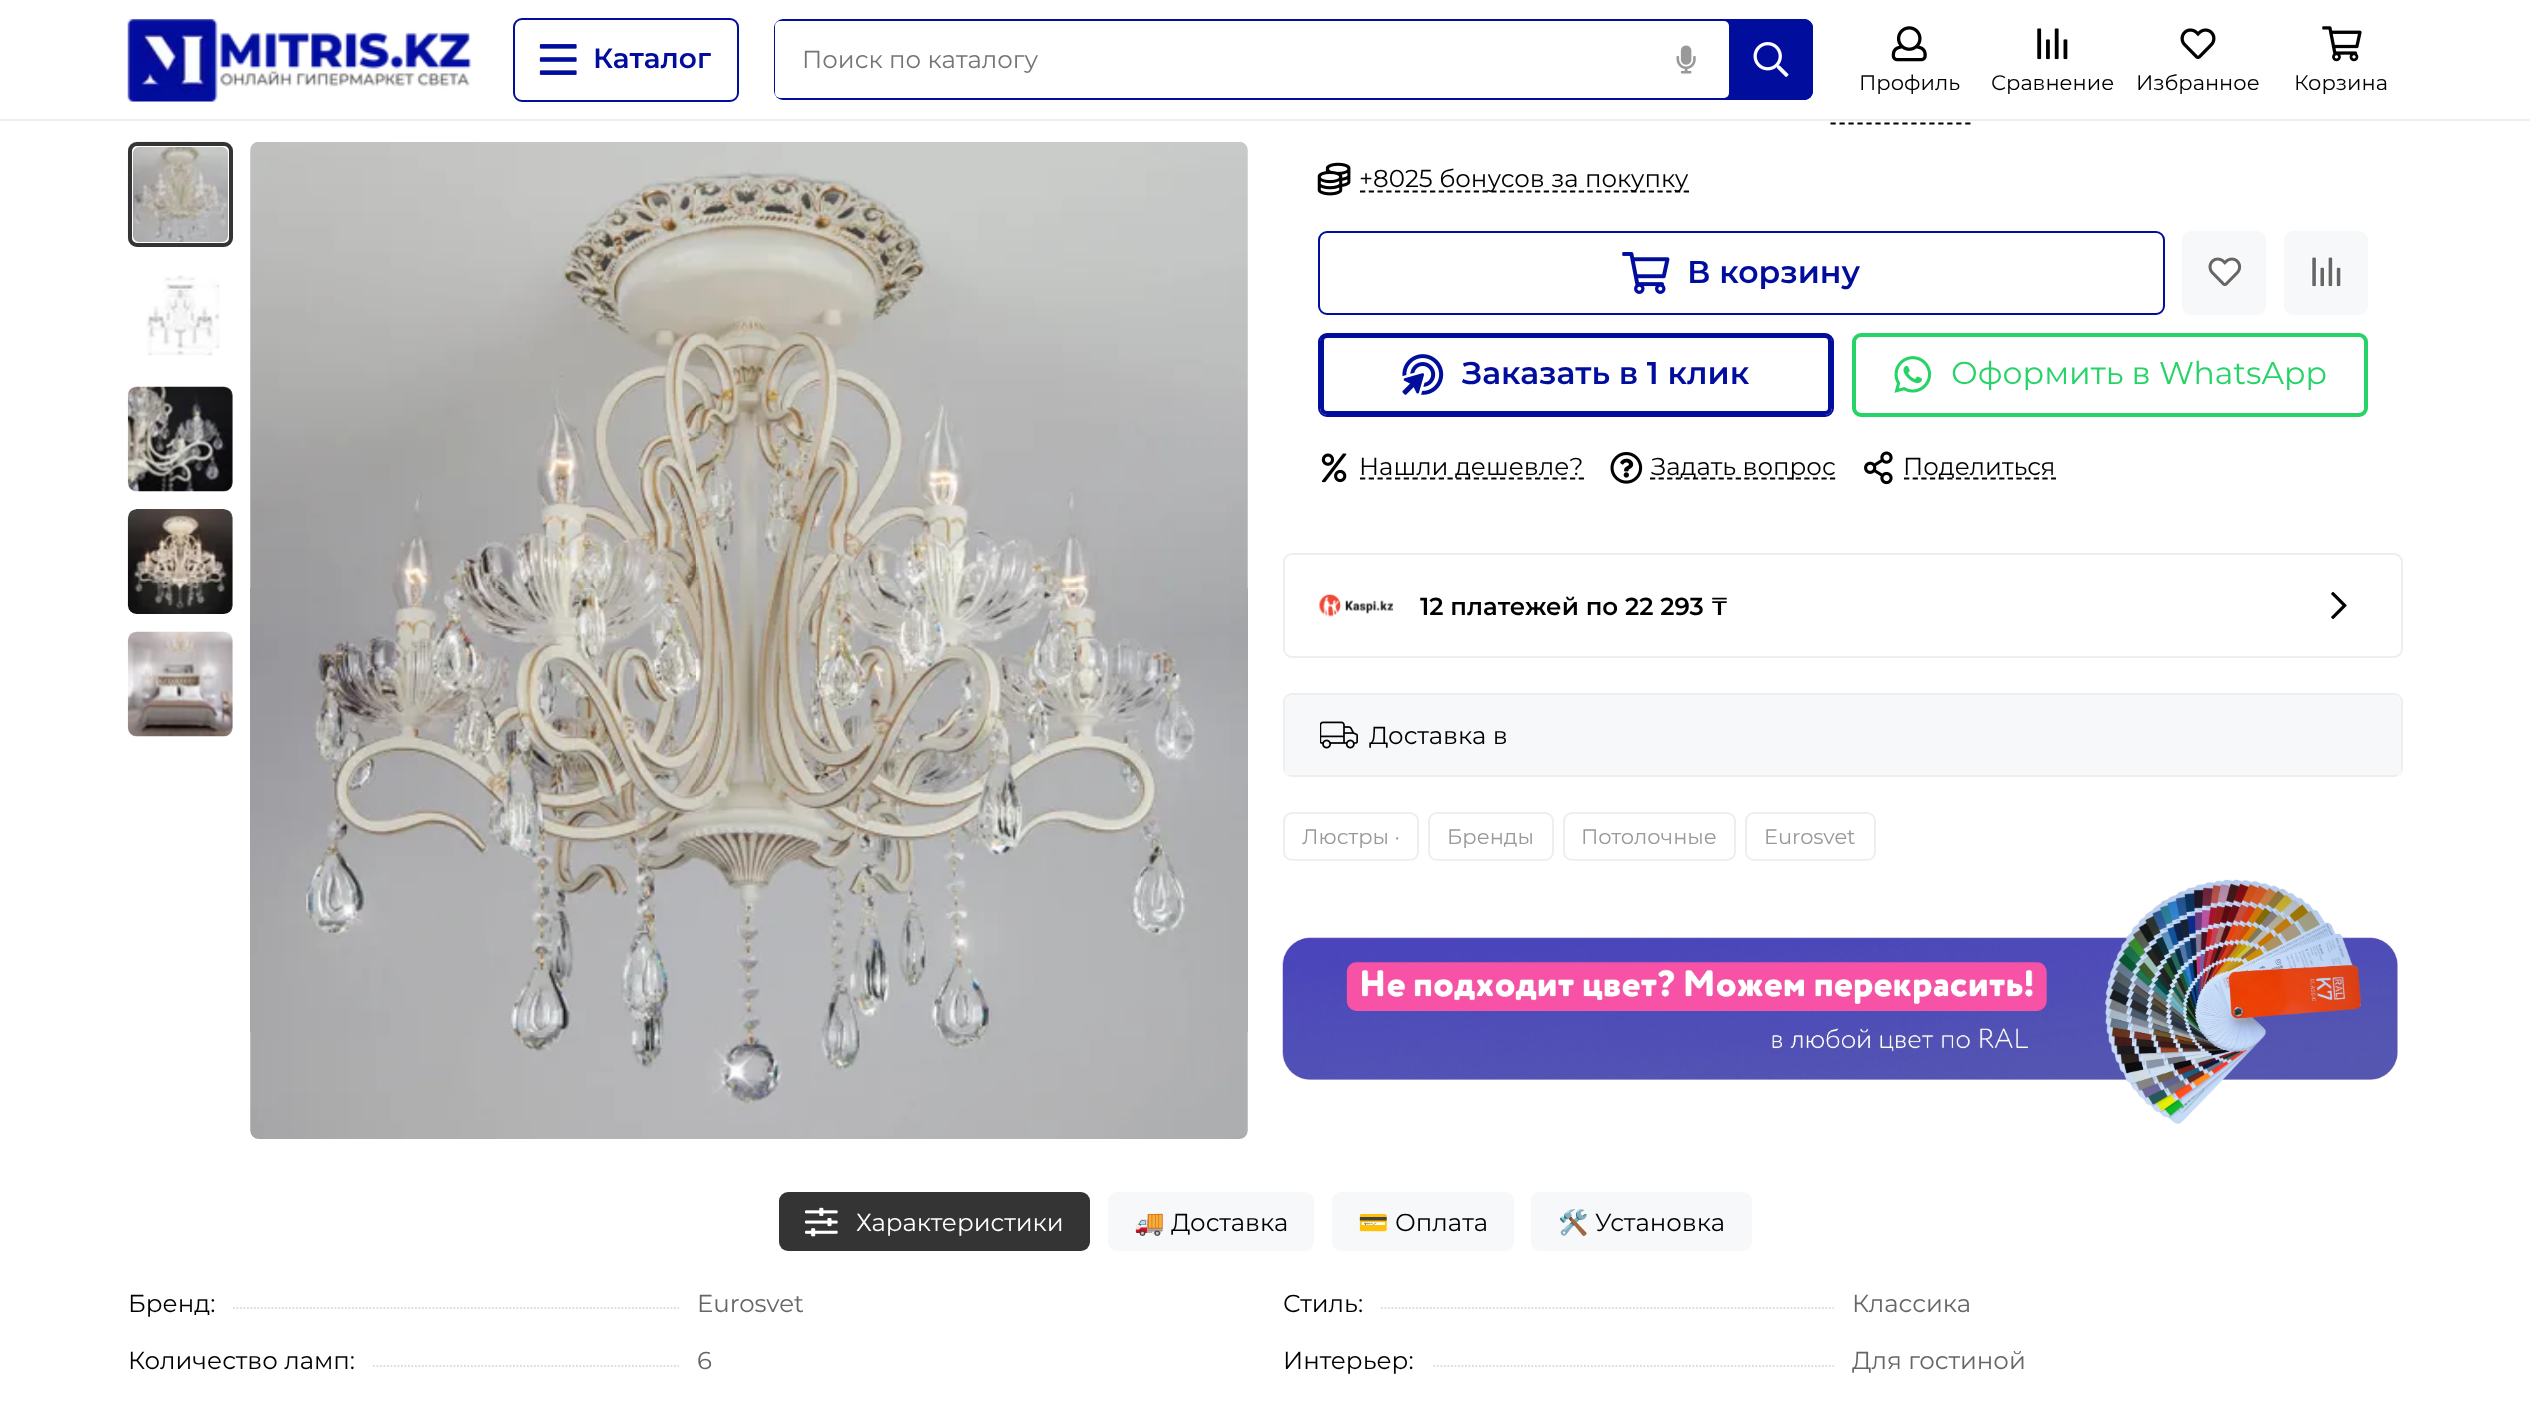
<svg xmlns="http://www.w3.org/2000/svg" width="2530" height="1404">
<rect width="100%" height="100%" fill="#fff"/>
<path d="M0 119v2h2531v-119h-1v117z" fill="#eee"/>
<image x="127" y="19" width="345" height="83" href="media/1.png"/>
<rect x="514" y="19" width="224" height="82" rx="8" fill="none" stroke="#010d9d" stroke-width="2"/>
<image x="539" y="44" width="38" height="31" href="media/2.png"/>
<text x="593" y="68" style="font-family:Montserrat;font-size:28px;font-weight:600;fill:#010d9d">Каталог</text>
<rect x="774" y="19" width="1039" height="81" rx="9" fill="#010d9d"/>
<rect x="775" y="21" width="954" height="77" rx="5" fill="#fff"/>
<text x="802" y="68" style="font-family:Montserrat;font-size:24.5px;fill:#757575">Поиск по каталогу</text>
<image x="1676" y="45" width="20" height="29" href="media/3.png"/>
<path d="M1729 19h75c5 0 9 4 9 9v63c0 5-4 9-9 9h-75z" fill="#010d9d"/>
<image x="1753" y="42" width="36" height="35" href="media/4.png"/>
<image x="1891" y="26" width="36" height="36" href="media/5.png"/>
<text x="1859" y="90" style="font-family:Montserrat;font-size:21px;fill:#000">Профиль</text>
<image x="2037" y="28" width="31" height="32" href="media/6.png"/>
<text x="1991" y="90" style="font-family:Montserrat;font-size:21px;fill:#000">Сравнение</text>
<image x="2180" y="28" width="36" height="31" href="media/7.png"/>
<text x="2136" y="90" style="font-family:Montserrat;font-size:21px;fill:#000">Избранное</text>
<image x="2322" y="26" width="40" height="36" href="media/8.png"/>
<text x="2294" y="90" style="font-family:Montserrat;font-size:21px;fill:#000">Корзина</text>
<image x="127" y="141" width="106" height="106" href="media/9.png"/>
<rect x="130.5" y="144.5" width="100" height="100" rx="8.5" fill="none" stroke="#fff" stroke-width="5"/>
<rect x="130" y="144" width="101" height="101" rx="7" fill="none" stroke="#343434" stroke-width="4"/>
<image x="146" y="275" width="74" height="81" href="media/10.png"/>
<image x="127" y="386" width="106" height="106" href="media/11.png"/>
<image x="127" y="509" width="106" height="105" href="media/12.png"/>
<image x="127" y="631" width="106" height="106" href="media/13.png"/>
<image x="250" y="142" width="998" height="997" href="media/14.png"/>
<path d="M1830.5 123.5h140" fill="none" stroke="#000" stroke-width="1.8" stroke-dasharray="5.25 3.73"/>
<image x="1317" y="162" width="34" height="34" href="media/15.png"/>
<path d="M1360 191.5h329" fill="none" stroke="#000" stroke-width="1.8" stroke-dasharray="5.25 3.5"/>
<text x="1359" y="187" style="font-family:Montserrat;font-size:24.5px;fill:#000">+8025 бонусов за покупку</text>
<rect x="1319" y="232" width="845" height="82" rx="8" fill="none" stroke="#010d9d" stroke-width="2"/>
<image x="1622" y="252" width="48" height="42" href="media/16.png"/>
<text x="1687" y="283" style="font-family:Montserrat;font-size:31.5px;font-weight:600;fill:#010d9d">В корзину</text>
<rect x="2182" y="231" width="84" height="84" rx="9" fill="#f7f8fa"/>
<image x="2208" y="257" width="34" height="30" href="media/17.png"/>
<rect x="2284" y="231" width="84" height="84" rx="9" fill="#f7f8fa"/>
<image x="2311" y="257" width="31" height="30" href="media/18.png"/>
<rect x="1322" y="336" width="508" height="77" rx="5" fill="none" stroke="#010d9d" stroke-width="4"/>
<rect x="1319" y="334" width="514" height="82" rx="8" fill="none" stroke="#010d9d" stroke-width="2"/>
<image x="1402" y="354" width="42" height="41" href="media/19.png"/>
<text x="1462" y="384" style="font-family:Montserrat;font-size:31.5px;font-weight:600;fill:#010d9d">Заказать в 1 клик</text>
<rect x="1854" y="335" width="512" height="80" rx="7" fill="none" stroke="#25d366" stroke-width="4"/>
<image x="1894" y="356" width="38" height="37" href="media/20.png"/>
<text x="1951" y="384" style="font-family:Montserrat;font-size:31.5px;fill:#25d366">Оформить в WhatsApp</text>
<image x="1321" y="453" width="26" height="30" href="media/21.png"/>
<path d="M1360 478.5h224" fill="none" stroke="#000" stroke-width="1.8" stroke-dasharray="5.25 3.5"/>
<text x="1359" y="475" style="font-family:Montserrat;font-size:24.5px;fill:#000">Нашли дешевле?</text>
<image x="1610" y="452" width="33" height="32" href="media/22.png"/>
<path d="M1650 478.5h186" fill="none" stroke="#000" stroke-width="1.8" stroke-dasharray="5.25 3.32"/>
<text x="1651" y="475" style="font-family:Montserrat;font-size:24.5px;fill:#000">Задать вопрос</text>
<image x="1864" y="451" width="29" height="34" href="media/23.png"/>
<path d="M1904 478.5h152" fill="none" stroke="#000" stroke-width="1.8" stroke-dasharray="5.25 3.4"/>
<text x="1903" y="475" style="font-family:Montserrat;font-size:24.5px;fill:#000">Поделиться</text>
<rect x="1284" y="554" width="1118" height="103" rx="8" fill="none" stroke="#eee" stroke-width="2"/>
<image x="1319" y="594" width="74" height="23" href="media/24.png"/>
<text x="1420" y="615" style="font-family:Montserrat;font-size:24.5px;font-weight:600;fill:#000">12 платежей по 22 293 ₸</text>
<image x="2331" y="591" width="16" height="29" href="media/25.png"/>
<rect x="1284" y="694" width="1118" height="82" rx="8" fill="none" stroke="#eee" stroke-width="2"/>
<path d="M1294 695h1098c5 0 9 4 9 9v71h-1116v-71c0-5 4-9 9-9z" fill="#f7f8fa"/>
<image x="1320" y="721" width="38" height="28" href="media/26.png"/>
<text x="1369" y="744" style="font-family:Montserrat;font-size:24.5px;fill:#000">Доставка в</text>
<rect x="1284" y="813" width="134" height="47" rx="8" fill="none" stroke="#eee" stroke-width="2"/>
<text x="1302" y="844" style="font-family:Montserrat;font-size:21px;fill:#999">Люстры ·</text>
<rect x="1429" y="813" width="124" height="47" rx="8" fill="none" stroke="#eee" stroke-width="2"/>
<text x="1447" y="844" style="font-family:Montserrat;font-size:21px;fill:#999">Бренды</text>
<rect x="1564" y="813" width="171" height="47" rx="8" fill="none" stroke="#eee" stroke-width="2"/>
<text x="1581" y="844" style="font-family:Montserrat;font-size:21px;fill:#999">Потолочные</text>
<rect x="1746" y="813" width="129" height="47" rx="8" fill="none" stroke="#eee" stroke-width="2"/>
<text x="1764" y="844" style="font-family:Montserrat;font-size:21px;fill:#999">Eurosvet</text>
<image x="1282" y="860" width="1116" height="264" href="media/27.png"/>
<rect x="779" y="1192" width="311" height="59" rx="9" fill="#343434"/>
<image x="805" y="1207" width="33" height="30" href="media/28.png"/>
<text x="856" y="1231" style="font-family:Montserrat;font-size:24.5px;fill:#fff">Характеристики</text>
<rect x="1108" y="1192" width="206" height="59" rx="9" fill="#f7f8fa"/>
<text x="1134" y="1231" style="font-family:Noto Color Emoji;font-size:24.5px;fill:#000">🚚</text>
<text x="1171" y="1231" style="font-family:Montserrat;font-size:24.5px;fill:#000">Доставка</text>
<rect x="1332" y="1192" width="182" height="59" rx="9" fill="#f7f8fa"/>
<text x="1358" y="1231" style="font-family:Noto Color Emoji;font-size:24.5px;fill:#000">💳</text>
<text x="1395" y="1231" style="font-family:Montserrat;font-size:24.5px;fill:#000">Оплата</text>
<rect x="1531" y="1192" width="221" height="59" rx="9" fill="#f7f8fa"/>
<text x="1558" y="1231" style="font-family:Noto Color Emoji;font-size:24.5px;fill:#000">🛠️</text>
<text x="1595" y="1231" style="font-family:Montserrat;font-size:24.5px;fill:#000">Установка</text>
<path d="M128 1308h551" fill="none" stroke="#ddd" stroke-width="1.8" stroke-dasharray="1.75 1.75"/>
<rect x="128" y="1307" width="104" height="2" fill="#fff"/>
<text x="128" y="1312" style="font-family:Montserrat;font-size:24.5px;fill:#000">Бренд:</text>
<text x="697" y="1312" style="font-family:Montserrat;font-size:24.5px;fill:#666">Eurosvet</text>
<path d="M1283 1308h551" fill="none" stroke="#ddd" stroke-width="1.8" stroke-dasharray="1.75 1.75"/>
<rect x="1283" y="1307" width="97" height="2" fill="#fff"/>
<text x="1283" y="1312" style="font-family:Montserrat;font-size:24.5px;fill:#000">Стиль:</text>
<text x="1852" y="1312" style="font-family:Montserrat;font-size:24.5px;fill:#666">Классика</text>
<path d="M128 1366h551" fill="none" stroke="#ddd" stroke-width="1.8" stroke-dasharray="1.75 1.75"/>
<rect x="128" y="1365" width="244" height="2" fill="#fff"/>
<text x="128" y="1369" style="font-family:Montserrat;font-size:24.5px;fill:#000">Количество ламп:</text>
<text x="697" y="1369" style="font-family:Montserrat;font-size:24.5px;fill:#666">6</text>
<path d="M1283 1366h551" fill="none" stroke="#ddd" stroke-width="1.8" stroke-dasharray="1.75 1.75"/>
<rect x="1283" y="1365" width="149" height="2" fill="#fff"/>
<text x="1283" y="1369" style="font-family:Montserrat;font-size:24.5px;fill:#000">Интерьер:</text>
<text x="1852" y="1369" style="font-family:Montserrat;font-size:24.5px;fill:#666">Для гостиной</text>
</svg>
